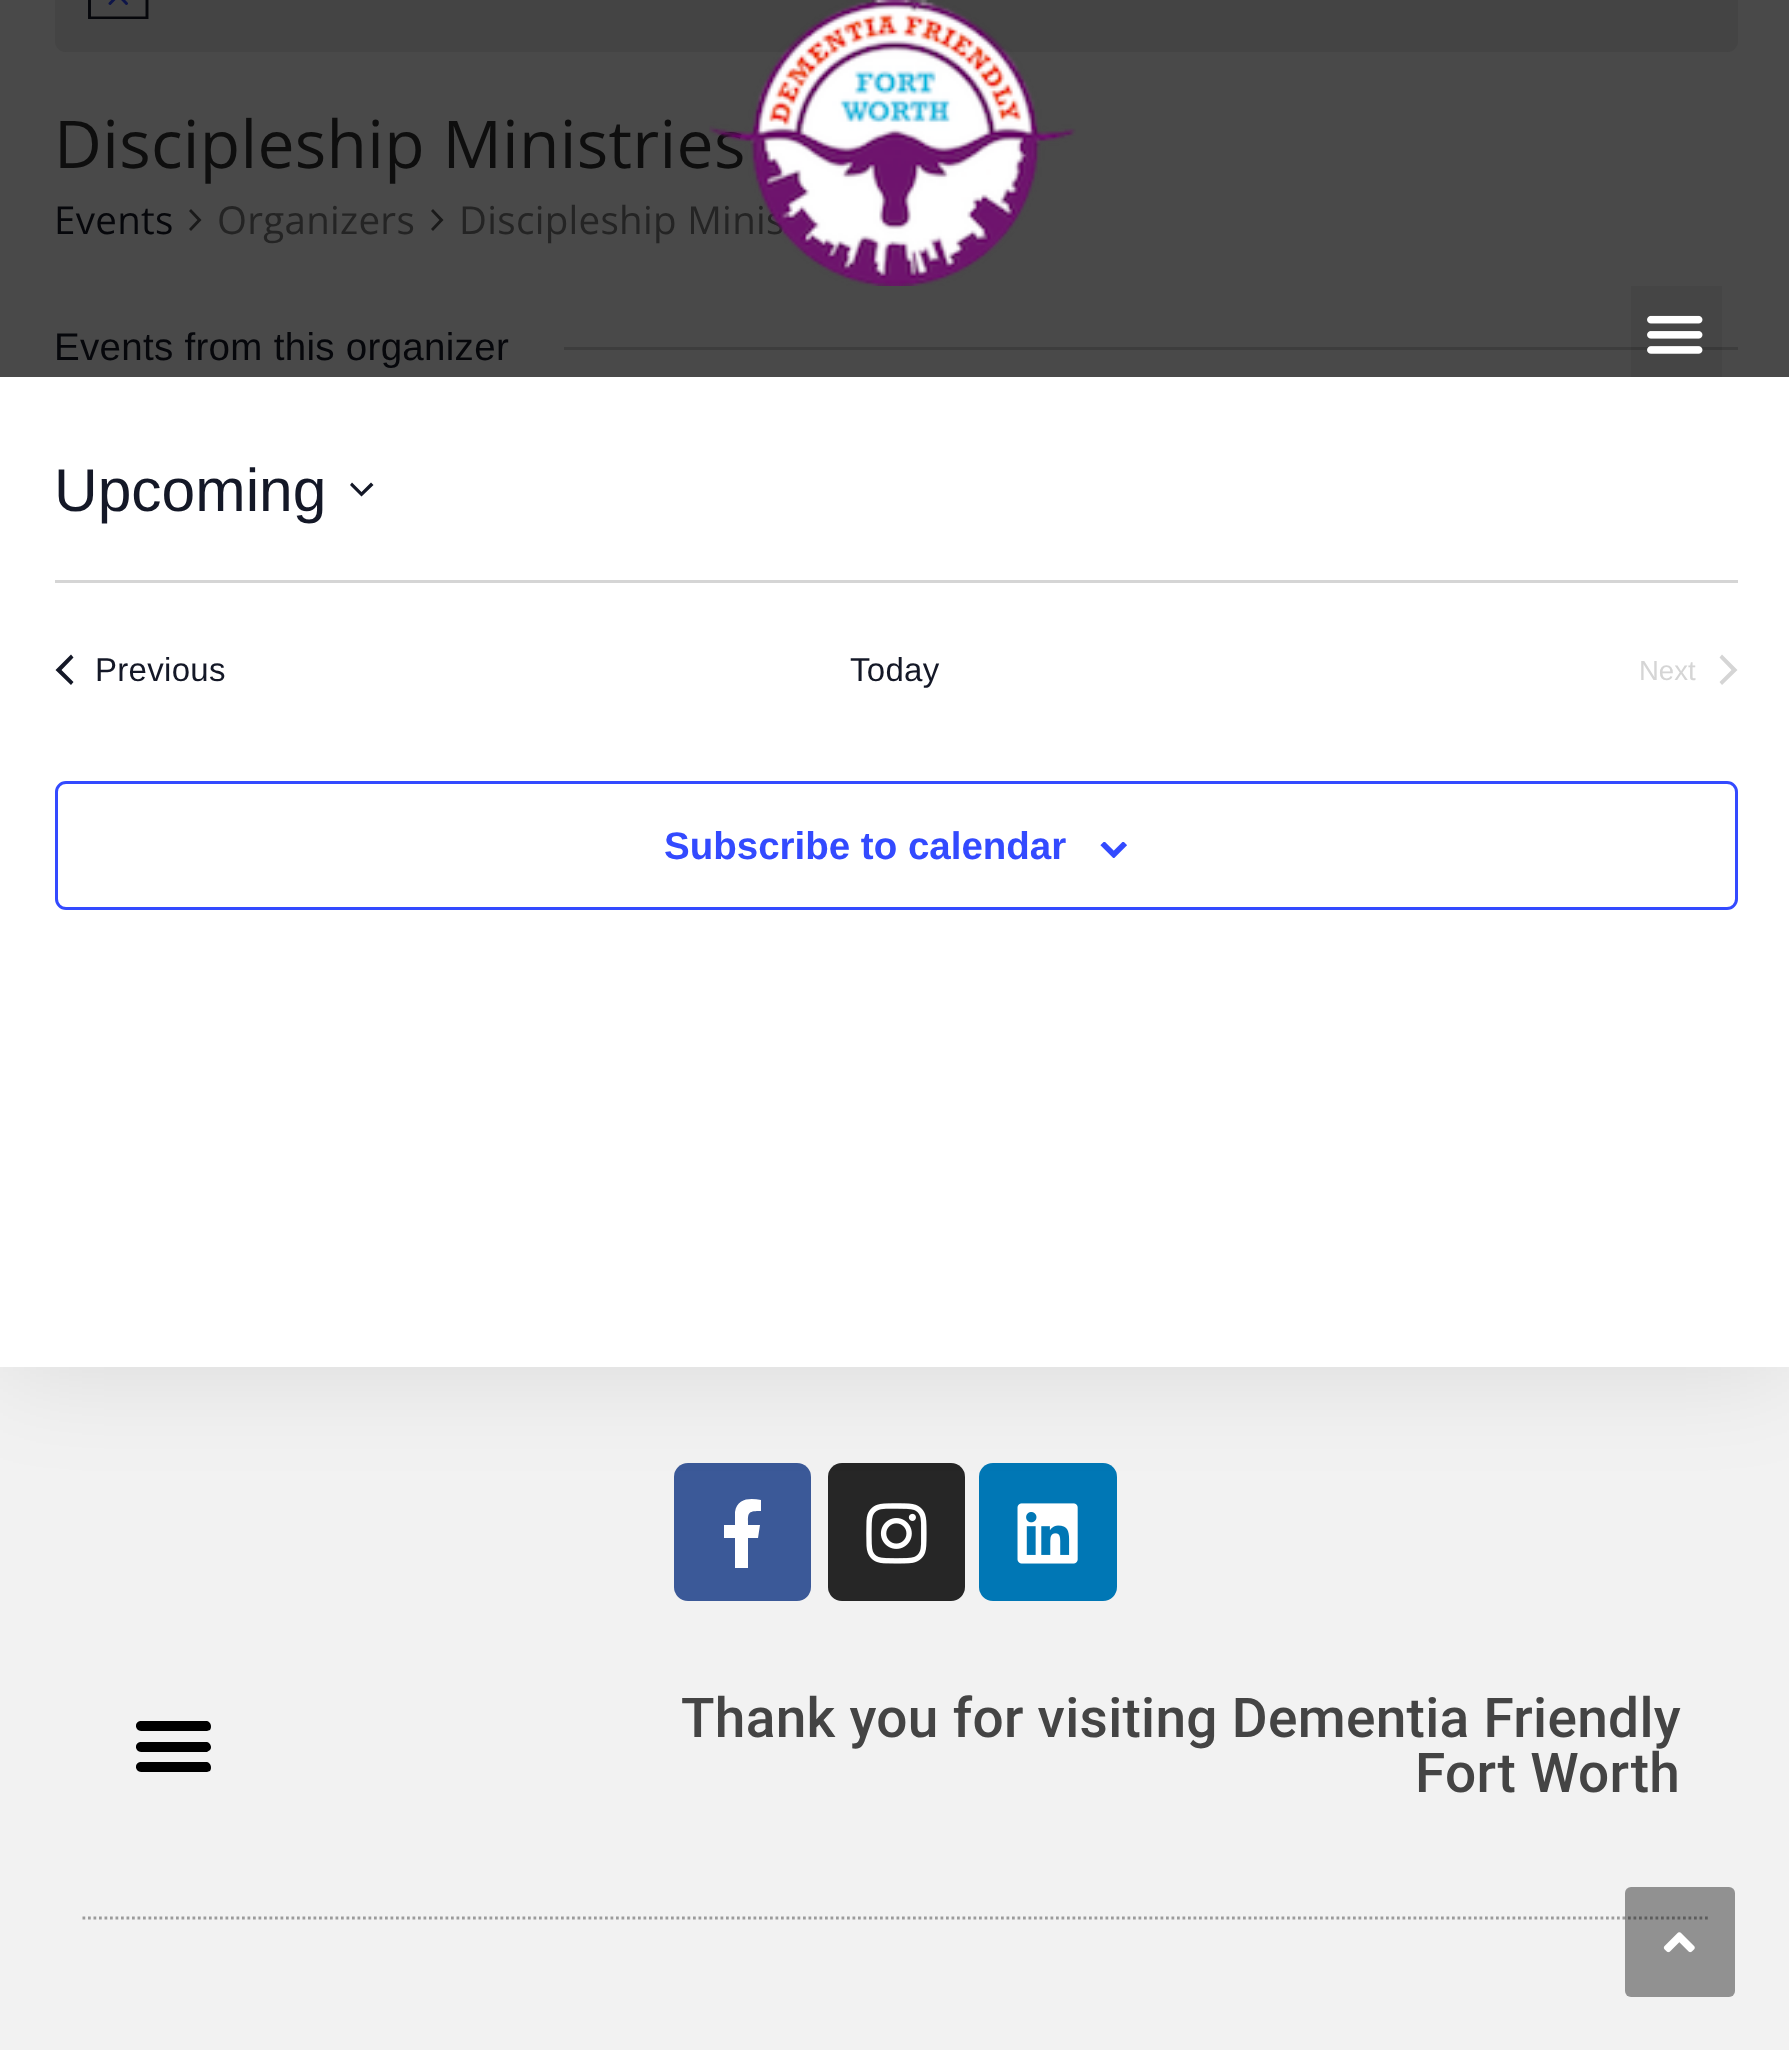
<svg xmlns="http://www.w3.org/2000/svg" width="1789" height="2050">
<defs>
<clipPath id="clip1"><rect x="88" width="61" height="19"/></clipPath>
</defs>
<rect width="100%" height="100%" fill="#f2f2f2"/>
<rect x="674" y="1463" width="137" height="138" rx="14" fill="#3b5998"/>
<path d="M758 1538h-10v30h-13v-30h-11v-13h11v-13c2-14 15-14 26-12v11c-14 0-13 2-13 14h12z" fill="#fff"/>
<rect x="828" y="1463" width="137" height="138" rx="14" fill="#262626"/>
<image x="866" y="1503" width="61" height="61" href="media/4.png"/>
<rect x="979" y="1463" width="138" height="138" rx="14" fill="#0077b5"/>
<image x="1017" y="1503" width="61" height="61" href="media/5.png"/>
<rect y="-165" width="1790" height="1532" fill="#0000001a" filter="blur(55px)"/>
<rect width="1789" height="377" fill="#494949"/>
<rect x="55" y="-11" width="1683" height="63" rx="11" fill="#444"/>
<text x="54" y="168" style="font-family:Open Sans;font-size:66px;letter-spacing:0.3px;fill:#0e0e0e">Discipleship Ministries</text>
<text x="459" y="234" style="font-family:Open Sans;font-size:38.5px;letter-spacing:0.3px;fill:#242424">Discipleship Minis</text>
<image x="709" y="0" width="367" height="286" href="media/1.png"/>
<rect x="564" y="347" width="1174" height="3" fill="#3d3d3d"/>
<rect x="1631" y="286" width="91" height="91" fill="#0000000d"/>
<image x="1647" y="315" width="56" height="39" href="media/2.png"/>
<rect y="377" width="1789" height="990" fill="#fff"/>
<g clip-path="url(#clip1)">
<path d="M89.5-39.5h57.5v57.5h-57.5z" fill="none" stroke="#06070b" stroke-width="2.9"/>
</g>
<path d="M110-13.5l16.5 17m0-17l-16.5 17" fill="none" stroke="#0e1549" stroke-width="2.9" stroke-linecap="round"/>
<text x="54" y="234" style="font-family:Open Sans;font-size:38.5px;letter-spacing:0.3px;fill:#06070b">Events</text>
<path d="M189 211l2-2l10.5 11l-10.5 11l-2-2l8.5-9z" fill="#1a1a1a"/>
<text x="217" y="234" style="font-family:Open Sans;font-size:38.5px;letter-spacing:0.3px;fill:#242424">Organizers</text>
<path d="M431 211l2-2l10.5 11l-10.5 11l-2-2l8.5-9z" fill="#1a1a1a"/>
<text x="54" y="360" style="font-family:Liberation Sans;font-size:38.5px;letter-spacing:0.3px;fill:#06070b">Events from this organizer</text>
<text x="54" y="511" style="font-family:Liberation Sans;font-size:60.5px;fill:#141827">Upcoming</text>
<path d="M352 482.5l9.5 9.5l9.5-9.5l2.5 2.5l-12 11.5l-11.5-11.5z" fill="#141827" fill-rule="evenodd"/>
<rect x="55" y="580" width="1683" height="3" fill="#d5d5d5"/>
<path d="M73.5 682l-2.5 3l-15.5-15l15.5-15.5l2.5 3l-12 12.5z" fill="#141827"/>
<text x="95" y="681" style="font-family:Liberation Sans;font-size:33px;letter-spacing:0.3px;fill:#141827">Previous</text>
<text x="850" y="681" style="font-family:Liberation Sans;font-size:33px;letter-spacing:0.3px;fill:#141827">Today</text>
<text x="1639" y="680" style="font-family:Liberation Sans;font-size:27.5px;fill:#d5d5d5">Next</text>
<path d="M1719.5 657.5l2.5-3l15.5 15.5l-15.5 15l-2.5-3l12-12z" fill="#d5d5d5"/>
<rect x="56.5" y="782.5" width="1680" height="126" rx="9.5" fill="none" stroke="#334aff" stroke-width="3"/>
<text x="664" y="859" style="font-family:Liberation Sans;font-size:38.5px;font-weight:bold;fill:#334aff">Subscribe to calendar</text>
<image x="1100" y="842" width="27" height="16" href="media/3.png"/>
<path d="M82.5 1918h1625.5" fill="none" stroke="#9b9b9b" stroke-width="2.8" stroke-dasharray="2.75 2.75"/>
<path d="M141 1731h66l3-1c2-3 1-8-3-9h-67c-6 1-5 10 1 10zm0 21h66l3-2c2-2 1-7-3-8h-67c-6 1-5 10 1 10zm0 20h66l3-1c2-3 1-8-3-9h-67c-6 1-5 10 1 10z" fill="#000"/>
<text x="681" y="1737" style="font-family:Roboto;font-size:55px;font-weight:500;letter-spacing:0.3px;fill:#444">Thank you for visiting Dementia Friendly</text>
<text x="1415" y="1792" style="font-family:Roboto;font-size:55px;font-weight:500;letter-spacing:0.3px;fill:#444">Fort Worth</text>
<rect x="1625" y="1887" width="110" height="110" rx="6" fill="#00000066"/>
<image x="1663" y="1932" width="32" height="21" href="media/6.png"/>
</svg>
